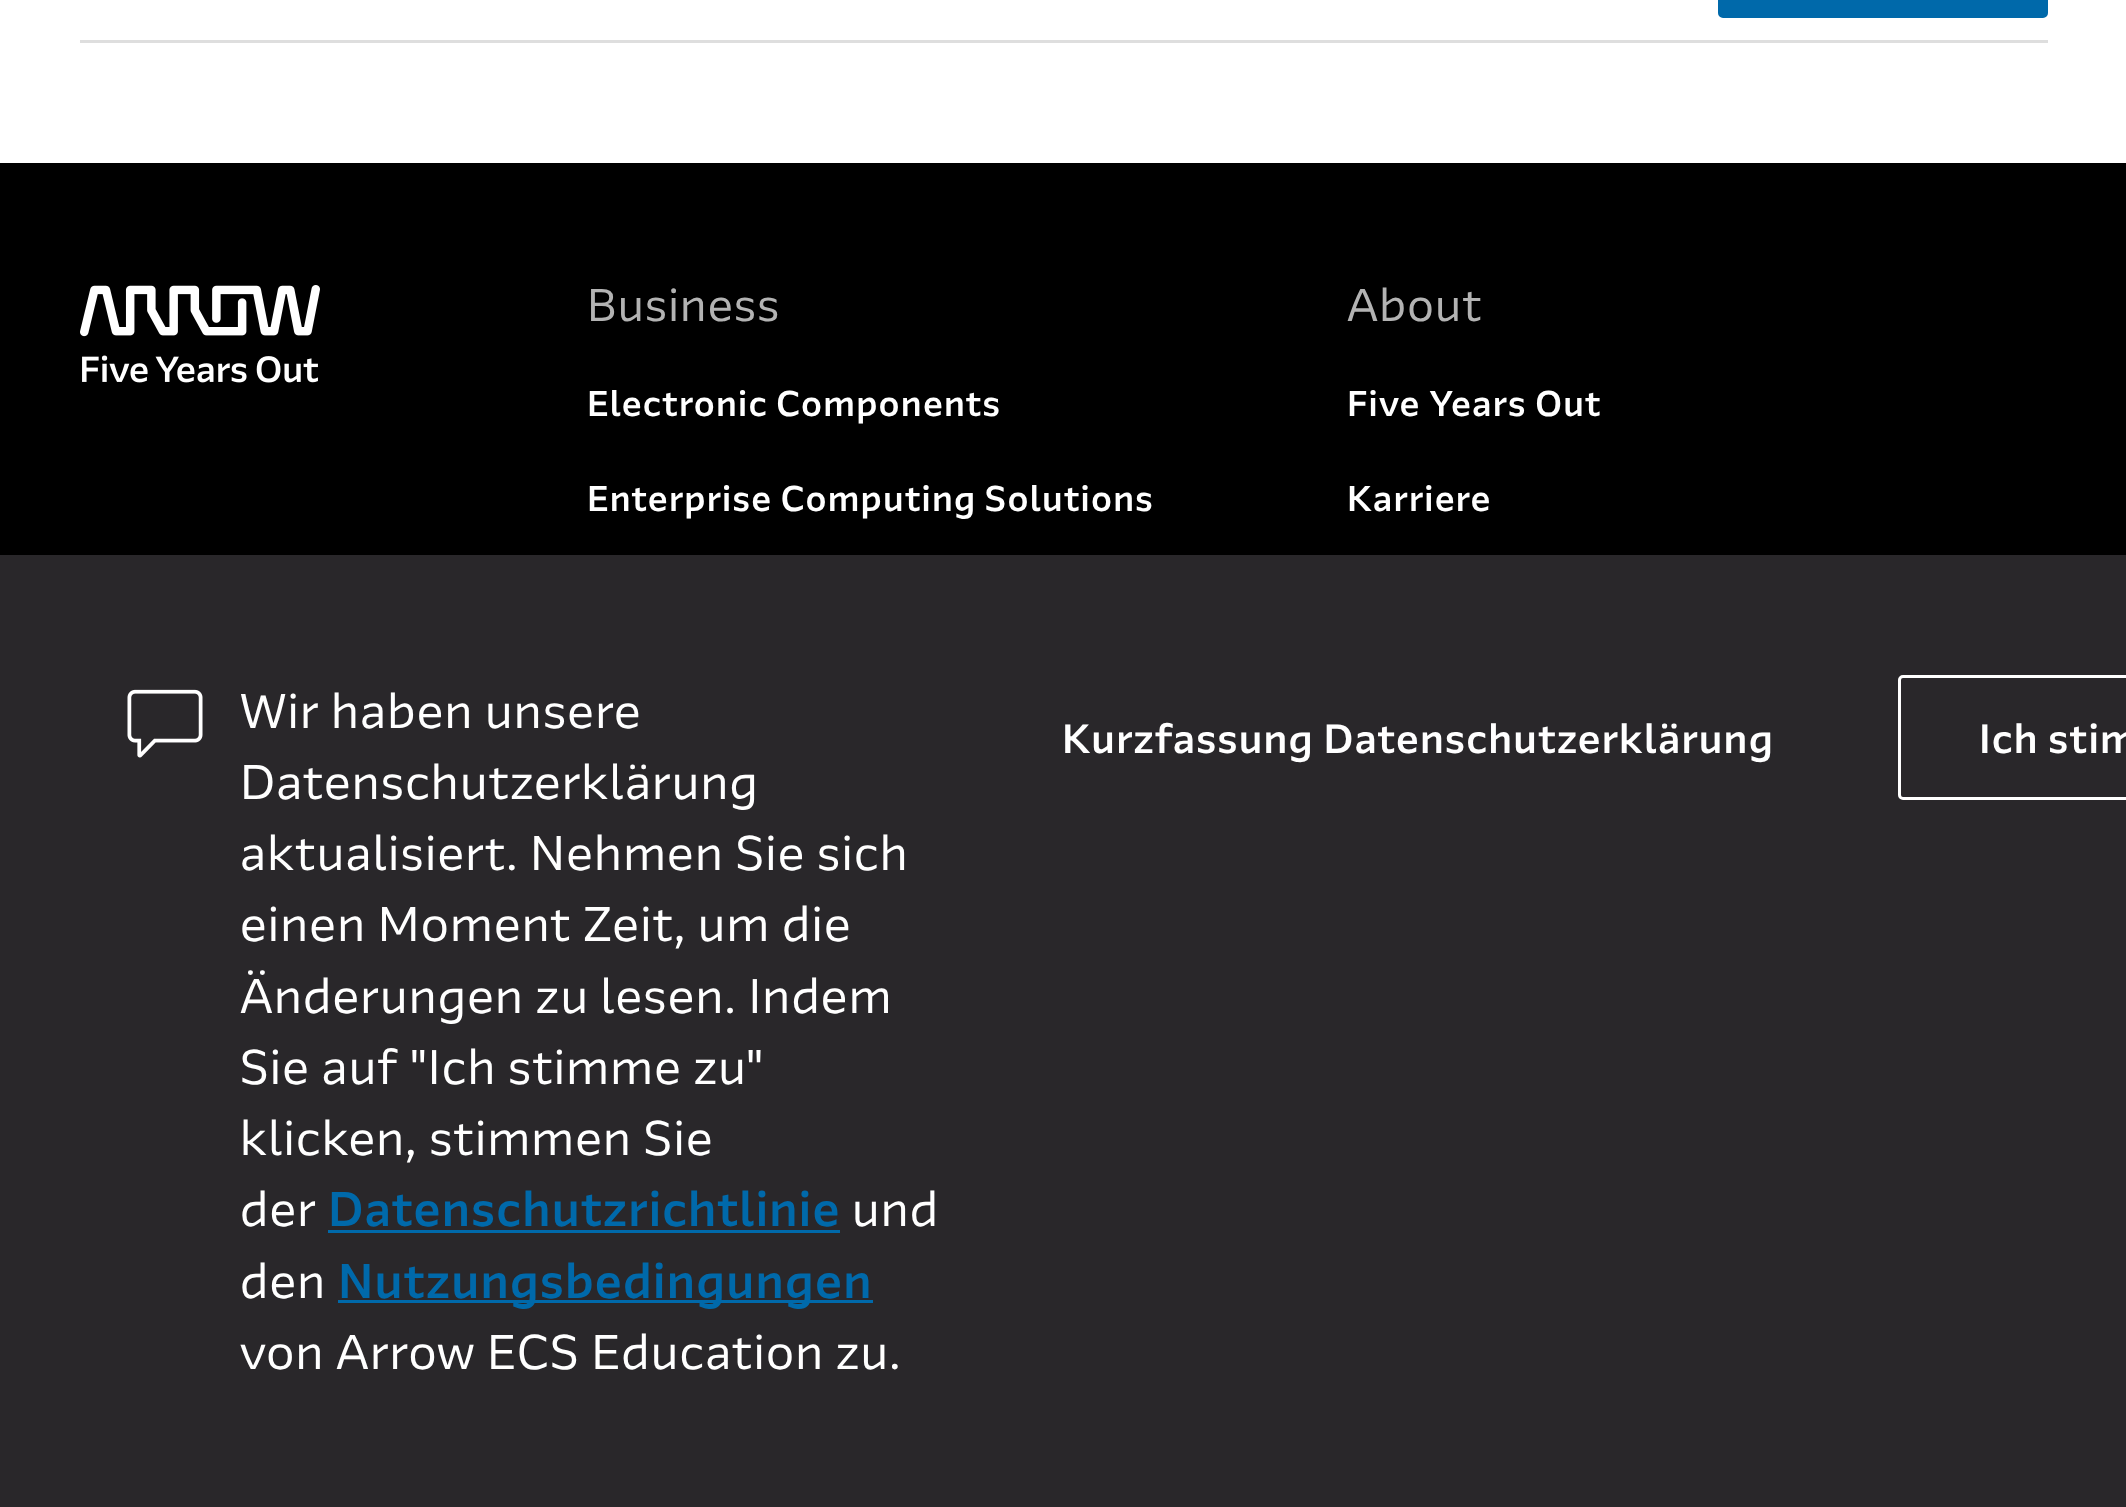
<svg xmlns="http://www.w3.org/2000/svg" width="2126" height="1507">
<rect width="100%" height="100%" fill="#fff"/>
<rect x="80" y="40" width="1968" height="3" fill="#dedede"/>
<rect x="1719.5" y="-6.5" width="327" height="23" rx="3.5" fill="#0069aa" stroke="#0069aa" stroke-width="3"/>
<rect y="163" width="2126" height="392" fill="#000"/>
<image x="80" y="285" width="240" height="98" href="media/1.png"/>
<text x="587" y="321" style="font-family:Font;font-size:45px;letter-spacing:1.25px;fill:#b3b3b3">Business</text>
<text x="587" y="416" style="font-family:Font;font-size:35px;font-weight:500;letter-spacing:1.25px;fill:#fff">Electronic Components</text>
<text x="587" y="511" style="font-family:Font;font-size:35px;font-weight:500;letter-spacing:1.25px;fill:#fff">Enterprise Computing Solutions</text>
<text x="1347" y="321" style="font-family:Font;font-size:45px;letter-spacing:1.25px;fill:#b3b3b3">About</text>
<text x="1347" y="416" style="font-family:Font;font-size:35px;font-weight:500;letter-spacing:1.25px;fill:#fff">Five Years Out</text>
<text x="1347" y="511" style="font-family:Font;font-size:35px;font-weight:500;letter-spacing:1.25px;fill:#fff">Karriere</text>
<rect y="555" width="2126" height="952" fill="#29272a"/>
<image x="127" y="689" width="76" height="69" href="media/2.png"/>
<text x="240" y="728" style="font-family:Font;font-size:47.5px;letter-spacing:1.25px;fill:#fff">Wir haben unsere</text>
<text x="240" y="799" style="font-family:Font;font-size:47.5px;letter-spacing:1.25px;fill:#fff">Datenschutzerklärung</text>
<text x="240" y="870" style="font-family:Font;font-size:47.5px;letter-spacing:1.25px;fill:#fff">aktualisiert. Nehmen Sie sich</text>
<text x="240" y="941" style="font-family:Font;font-size:47.5px;letter-spacing:1.25px;fill:#fff">einen Moment Zeit, um die</text>
<text x="240" y="1013" style="font-family:Font;font-size:47.5px;letter-spacing:1.25px;fill:#fff">Änderungen zu lesen. Indem</text>
<text x="240" y="1084" style="font-family:Font;font-size:47.5px;letter-spacing:1.25px;fill:#fff">Sie auf "Ich stimme zu"</text>
<text x="240" y="1155" style="font-family:Font;font-size:47.5px;letter-spacing:1.25px;fill:#fff">klicken, stimmen Sie</text>
<text x="240" y="1226" style="font-family:Font;font-size:47.5px;letter-spacing:1.25px;fill:#fff">der</text>
<text x="328" y="1226" style="font-family:Font;font-size:47.5px;font-weight:500;letter-spacing:1.25px;fill:#0069aa">Datenschutzrichtlinie</text>
<rect x="328" y="1230" width="512" height="3" fill="#0069aa"/>
<text x="852" y="1226" style="font-family:Font;font-size:47.5px;letter-spacing:1.25px;fill:#fff">und</text>
<text x="240" y="1298" style="font-family:Font;font-size:47.5px;letter-spacing:1.25px;fill:#fff">den</text>
<rect x="338" y="1300" width="535" height="3" fill="#0069aa"/>
<text x="338" y="1298" style="font-family:Font;font-size:47.5px;font-weight:500;letter-spacing:1.25px;fill:#0069aa">Nutzungsbedingungen</text>
<text x="240" y="1369" style="font-family:Font;font-size:47.5px;letter-spacing:1.25px;fill:#fff">von Arrow ECS Education zu.</text>
<text x="1062" y="753" style="font-family:Font;font-size:40px;font-weight:500;letter-spacing:1.25px;fill:#fff">Kurzfassung Datenschutzerklärung</text>
<rect x="1899.5" y="676.5" width="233" height="122" rx="3.5" fill="none" stroke="#fff" stroke-width="3"/>
<text x="1979" y="753" style="font-family:Font;font-size:40px;font-weight:500;letter-spacing:1.25px;fill:#fff">Ich stim</text>
</svg>
